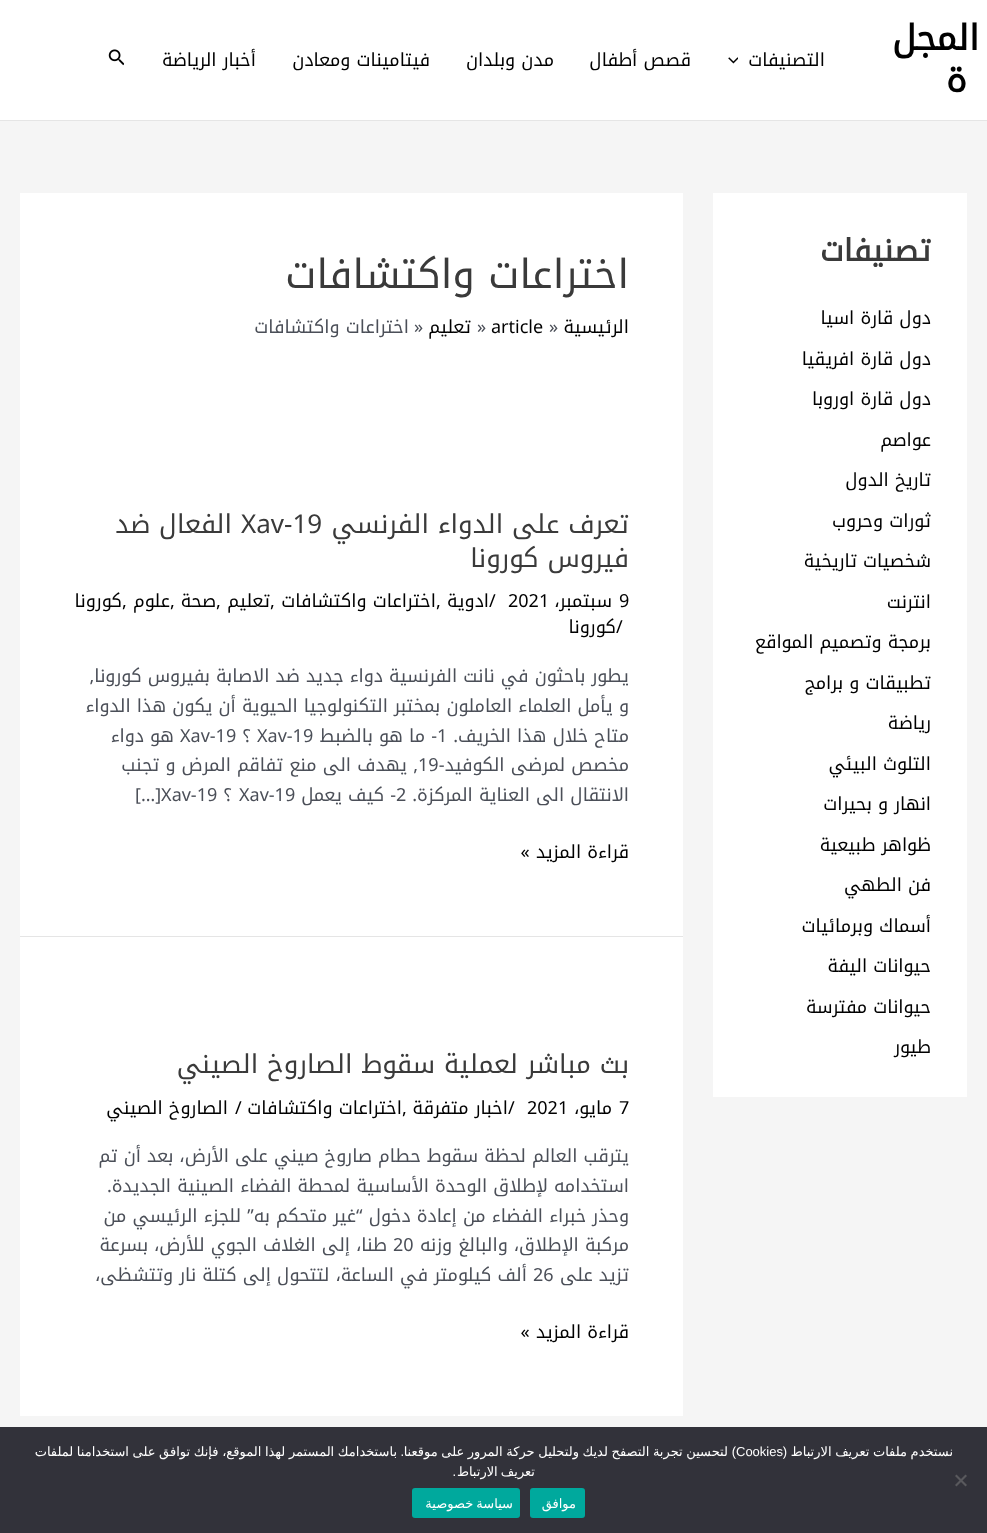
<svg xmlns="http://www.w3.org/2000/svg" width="987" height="1533">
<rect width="100%" height="100%" fill="#f5f5f5"/>
<rect width="987" height="120" fill="#fff"/>
<rect y="120" width="987" height="1" fill="#e5e5e5"/>
<text x="979" y="50" style="font-family:Noto Kufi Arabic;font-size:35px;font-weight:bold;direction:rtl;fill:#000">المجل</text>
<text x="967" y="92" style="font-family:Noto Kufi Arabic;font-size:35px;font-weight:bold;direction:rtl;fill:#000">ة</text>
<text x="825" y="66" style="font-family:Noto Kufi Arabic;font-size:18px;direction:rtl;fill:#000">التصنيفات</text>
<image x="728" y="57" width="10" height="7" href="media/1.png"/>
<text x="691" y="66" style="font-family:Noto Kufi Arabic;font-size:18px;direction:rtl;fill:#000">قصص أطفال</text>
<text x="554" y="66" style="font-family:Noto Kufi Arabic;font-size:18px;direction:rtl;fill:#000">مدن وبلدان</text>
<text x="430" y="66" style="font-family:Noto Kufi Arabic;font-size:18px;direction:rtl;fill:#000">فيتامينات ومعادن</text>
<text x="256" y="66" style="font-family:Noto Kufi Arabic;font-size:18px;direction:rtl;fill:#000">أخبار الرياضة</text>
<image x="108" y="49" width="16" height="17" href="media/2.png"/>
<rect x="713" y="193" width="254" height="904" fill="#fff"/>
<text x="931" y="261" style="font-family:Noto Kufi Arabic;font-size:30.5px;font-weight:bold;direction:rtl;fill:#3a3a3a">تصنيفات</text>
<text x="931" y="324" style="font-family:Noto Kufi Arabic;font-size:18px;direction:rtl;fill:#000">دول قارة اسيا</text>
<text x="931" y="365" style="font-family:Noto Kufi Arabic;font-size:18px;direction:rtl;fill:#000">دول قارة افريقيا</text>
<text x="931" y="405" style="font-family:Noto Kufi Arabic;font-size:18px;direction:rtl;fill:#000">دول قارة اوروبا</text>
<text x="931" y="446" style="font-family:Noto Kufi Arabic;font-size:18px;direction:rtl;fill:#000">عواصم</text>
<text x="931" y="486" style="font-family:Noto Kufi Arabic;font-size:18px;direction:rtl;fill:#000">تاريخ الدول</text>
<text x="931" y="527" style="font-family:Noto Kufi Arabic;font-size:18px;direction:rtl;fill:#000">ثورات وحروب</text>
<text x="931" y="567" style="font-family:Noto Kufi Arabic;font-size:18px;direction:rtl;fill:#000">شخصيات تاريخية</text>
<text x="931" y="608" style="font-family:Noto Kufi Arabic;font-size:18px;direction:rtl;fill:#000">انترنت</text>
<text x="931" y="648" style="font-family:Noto Kufi Arabic;font-size:18px;direction:rtl;fill:#000">برمجة وتصميم المواقع</text>
<text x="931" y="689" style="font-family:Noto Kufi Arabic;font-size:18px;direction:rtl;fill:#000">تطبيقات و برامج</text>
<text x="931" y="729" style="font-family:Noto Kufi Arabic;font-size:18px;direction:rtl;fill:#000">رياضة</text>
<text x="931" y="770" style="font-family:Noto Kufi Arabic;font-size:18px;direction:rtl;fill:#000">التلوث البيئي</text>
<text x="931" y="810" style="font-family:Noto Kufi Arabic;font-size:18px;direction:rtl;fill:#000">انهار و بحيرات</text>
<text x="931" y="851" style="font-family:Noto Kufi Arabic;font-size:18px;direction:rtl;fill:#000">ظواهر طبيعية</text>
<text x="931" y="891" style="font-family:Noto Kufi Arabic;font-size:18px;direction:rtl;fill:#000">فن الطهي</text>
<text x="931" y="932" style="font-family:Noto Kufi Arabic;font-size:18px;direction:rtl;fill:#000">أسماك وبرمائيات</text>
<text x="931" y="972" style="font-family:Noto Kufi Arabic;font-size:18px;direction:rtl;fill:#000">حيوانات اليفة</text>
<text x="931" y="1013" style="font-family:Noto Kufi Arabic;font-size:18px;direction:rtl;fill:#000">حيوانات مفترسة</text>
<text x="931" y="1053" style="font-family:Noto Kufi Arabic;font-size:18px;direction:rtl;fill:#000">طيور</text>
<rect x="20" y="193" width="663" height="743" fill="#fff"/>
<text x="629" y="288" style="font-family:Noto Kufi Arabic;font-size:40px;direction:rtl;fill:#3a3a3a">اختراعات واكتشافات</text>
<text x="629" y="333" style="font-family:Noto Kufi Arabic;font-size:18px;direction:rtl;fill:#000">الرئيسية</text>
<text x="549" y="333" style="font-family:Noto Kufi Arabic;font-size:18px;fill:#4b4f58">»</text>
<text x="491" y="333" style="font-family:Noto Kufi Arabic;font-size:18px;fill:#000">article</text>
<text x="477" y="333" style="font-family:Noto Kufi Arabic;font-size:18px;fill:#4b4f58">»</text>
<text x="471" y="333" style="font-family:Noto Kufi Arabic;font-size:18px;direction:rtl;fill:#000">تعليم</text>
<text x="414" y="333" style="font-family:Noto Kufi Arabic;font-size:18px;fill:#4b4f58">»</text>
<text x="409" y="333" style="font-family:Noto Kufi Arabic;font-size:18px;direction:rtl;fill:#4b4f58">اختراعات واكتشافات</text>
<rect x="20" y="936" width="663" height="1" fill="#e5e5e5"/>
<text x="629" y="533" style="font-family:Noto Kufi Arabic;font-size:26px;direction:rtl;fill:#3a3a3a">تعرف على الدواء الفرنسي</text>
<text x="241" y="533" style="font-family:Noto Kufi Arabic;font-size:26px;fill:#3a3a3a">Xav-19</text>
<text x="232" y="533" style="font-family:Noto Kufi Arabic;font-size:26px;direction:rtl;fill:#3a3a3a">الفعال ضد</text>
<text x="629" y="567" style="font-family:Noto Kufi Arabic;font-size:26px;direction:rtl;fill:#3a3a3a">فيروس كورونا</text>
<text x="619" y="607" style="font-family:Noto Kufi Arabic;font-size:18px;fill:#000">9</text>
<text x="612" y="607" style="font-family:Noto Kufi Arabic;font-size:18px;direction:rtl;fill:#000">سبتمبر،</text>
<text x="508" y="607" style="font-family:Noto Kufi Arabic;font-size:18px;fill:#000">2021</text>
<text x="489" y="607" style="font-family:Noto Kufi Arabic;font-size:18px;fill:#000">/</text>
<text x="489" y="607" style="font-family:Noto Kufi Arabic;font-size:18px;direction:rtl;fill:#000">ادوية</text>
<text x="436" y="607" style="font-family:Noto Kufi Arabic;font-size:18px;fill:#000">,</text>
<text x="436" y="607" style="font-family:Noto Kufi Arabic;font-size:18px;direction:rtl;fill:#000">اختراعات واكتشافات</text>
<text x="270" y="607" style="font-family:Noto Kufi Arabic;font-size:18px;fill:#000">,</text>
<text x="270" y="607" style="font-family:Noto Kufi Arabic;font-size:18px;direction:rtl;fill:#000">تعليم</text>
<text x="216" y="607" style="font-family:Noto Kufi Arabic;font-size:18px;fill:#000">,</text>
<text x="216" y="607" style="font-family:Noto Kufi Arabic;font-size:18px;direction:rtl;fill:#000">صحة</text>
<text x="170" y="607" style="font-family:Noto Kufi Arabic;font-size:18px;fill:#000">,</text>
<text x="170" y="607" style="font-family:Noto Kufi Arabic;font-size:18px;direction:rtl;fill:#000">علوم</text>
<text x="122" y="607" style="font-family:Noto Kufi Arabic;font-size:18px;fill:#000">,</text>
<text x="122" y="607" style="font-family:Noto Kufi Arabic;font-size:18px;direction:rtl;fill:#000">كورونا</text>
<text x="616" y="633" style="font-family:Noto Kufi Arabic;font-size:18px;fill:#000">/</text>
<text x="616" y="633" style="font-family:Noto Kufi Arabic;font-size:18px;direction:rtl;fill:#000">كورونا</text>
<text x="629" y="682" style="font-family:Noto Kufi Arabic;font-size:18px;direction:rtl;fill:#4b4f58">يطور باحثون في نانت الفرنسية دواء جديد ضد الاصابة بفيروس كورونا,</text>
<text x="629" y="712" style="font-family:Noto Kufi Arabic;font-size:18px;direction:rtl;fill:#4b4f58">و يأمل العلماء العاملون بمختبر التكنولوجيا الحيوية أن يكون هذا الدواء</text>
<text x="629" y="742" style="font-family:Noto Kufi Arabic;font-size:18px;direction:rtl;fill:#4b4f58">متاح خلال هذا الخريف.</text>
<text x="437" y="742" style="font-family:Noto Kufi Arabic;font-size:18px;fill:#4b4f58">1</text>
<text x="437" y="742" style="font-family:Noto Kufi Arabic;font-size:18px;direction:rtl;fill:#4b4f58">- ما هو بالضبط</text>
<text x="257" y="742" style="font-family:Noto Kufi Arabic;font-size:18px;fill:#4b4f58">Xav-19</text>
<text x="251" y="742" style="font-family:Noto Kufi Arabic;font-size:18px;direction:rtl;fill:#4b4f58">؟</text>
<text x="180" y="742" style="font-family:Noto Kufi Arabic;font-size:18px;fill:#4b4f58">Xav-19</text>
<text x="174" y="742" style="font-family:Noto Kufi Arabic;font-size:18px;direction:rtl;fill:#4b4f58">هو دواء</text>
<text x="629" y="771" style="font-family:Noto Kufi Arabic;font-size:18px;direction:rtl;fill:#4b4f58">مخصص لمرضى الكوفيد-</text>
<text x="418" y="771" style="font-family:Noto Kufi Arabic;font-size:18px;fill:#4b4f58">19</text>
<text x="418" y="771" style="font-family:Noto Kufi Arabic;font-size:18px;direction:rtl;fill:#4b4f58">, يهدف الى منع تفاقم المرض و تجنب</text>
<text x="629" y="801" style="font-family:Noto Kufi Arabic;font-size:18px;direction:rtl;fill:#4b4f58">الانتقال الى العناية المركزة.</text>
<text x="396" y="801" style="font-family:Noto Kufi Arabic;font-size:18px;fill:#4b4f58">2</text>
<text x="396" y="801" style="font-family:Noto Kufi Arabic;font-size:18px;direction:rtl;fill:#4b4f58">- كيف يعمل</text>
<text x="239" y="801" style="font-family:Noto Kufi Arabic;font-size:18px;fill:#4b4f58">Xav-19</text>
<text x="232" y="801" style="font-family:Noto Kufi Arabic;font-size:18px;direction:rtl;fill:#4b4f58">؟</text>
<text x="135" y="801" style="font-family:Noto Kufi Arabic;font-size:18px;fill:#4b4f58">[…]Xav-19</text>
<text x="629" y="858" style="font-family:Noto Kufi Arabic;font-size:18px;direction:rtl;fill:#000">قراءة المزيد »</text>
<rect x="20" y="937" width="663" height="479" fill="#fff"/>
<text x="629" y="1073" style="font-family:Noto Kufi Arabic;font-size:26px;direction:rtl;fill:#3a3a3a">بث مباشر لعملية سقوط الصاروخ الصيني</text>
<text x="619" y="1114" style="font-family:Noto Kufi Arabic;font-size:18px;fill:#000">7</text>
<text x="612" y="1114" style="font-family:Noto Kufi Arabic;font-size:18px;direction:rtl;fill:#000">مايو،</text>
<text x="527" y="1114" style="font-family:Noto Kufi Arabic;font-size:18px;fill:#000">2021</text>
<text x="508" y="1114" style="font-family:Noto Kufi Arabic;font-size:18px;fill:#000">/</text>
<text x="508" y="1114" style="font-family:Noto Kufi Arabic;font-size:18px;direction:rtl;fill:#000">اخبار متفرقة</text>
<text x="402" y="1114" style="font-family:Noto Kufi Arabic;font-size:18px;fill:#000">,</text>
<text x="402" y="1114" style="font-family:Noto Kufi Arabic;font-size:18px;direction:rtl;fill:#000">اختراعات واكتشافات</text>
<text x="235" y="1114" style="font-family:Noto Kufi Arabic;font-size:18px;fill:#000">/</text>
<text x="228" y="1114" style="font-family:Noto Kufi Arabic;font-size:18px;direction:rtl;fill:#000">الصاروخ الصيني</text>
<text x="629" y="1162" style="font-family:Noto Kufi Arabic;font-size:18px;direction:rtl;fill:#4b4f58">يترقب العالم لحظة سقوط حطام صاروخ صيني على الأرض، بعد أن تم</text>
<text x="629" y="1192" style="font-family:Noto Kufi Arabic;font-size:18px;direction:rtl;fill:#4b4f58">استخدامه لإطلاق الوحدة الأساسية لمحطة الفضاء الصينية الجديدة.</text>
<text x="629" y="1222" style="font-family:Noto Kufi Arabic;font-size:18px;direction:rtl;fill:#4b4f58">وحذر خبراء الفضاء من إعادة دخول “غير متحكم به” للجزء الرئيسي من</text>
<text x="629" y="1251" style="font-family:Noto Kufi Arabic;font-size:18px;direction:rtl;fill:#4b4f58">مركبة الإطلاق، والبالغ وزنه</text>
<text x="393" y="1251" style="font-family:Noto Kufi Arabic;font-size:18px;fill:#4b4f58">20</text>
<text x="387" y="1251" style="font-family:Noto Kufi Arabic;font-size:18px;direction:rtl;fill:#4b4f58">طنا، إلى الغلاف الجوي للأرض، بسرعة</text>
<text x="629" y="1281" style="font-family:Noto Kufi Arabic;font-size:18px;direction:rtl;fill:#4b4f58">تزيد على</text>
<text x="533" y="1281" style="font-family:Noto Kufi Arabic;font-size:18px;fill:#4b4f58">26</text>
<text x="527" y="1281" style="font-family:Noto Kufi Arabic;font-size:18px;direction:rtl;fill:#4b4f58">ألف كيلومتر في الساعة، لتتحول إلى كتلة نار وتتشظى،</text>
<text x="629" y="1338" style="font-family:Noto Kufi Arabic;font-size:18px;direction:rtl;fill:#000">قراءة المزيد »</text>
<rect y="1427" width="987" height="106" fill="#32323a"/>
<path d="M965.5 1474.5l1.5 1.5l-10.5 10.5l-1.5-1.5z" fill="#59595d"/>
<path d="M955 1476l1.5-1.5l10.5 10.5l-1.5 1.5z" fill="#59595d"/>
<text x="953" y="1456" word-spacing="-0.5" style="font-family:DejaVu Sans;font-size:13px;direction:rtl;fill:#fff">نستخدم ملفات تعريف الارتباط</text>
<text x="787" y="1456" style="font-family:Liberation Sans;font-size:13px;direction:rtl;fill:#fff">(</text>
<text x="736" y="1456" style="font-family:Liberation Sans;font-size:13px;fill:#fff">Cookies</text>
<text x="736" y="1456" style="font-family:Liberation Sans;font-size:13px;direction:rtl;fill:#fff">)</text>
<text x="728" y="1456" word-spacing="-0.5" style="font-family:DejaVu Sans;font-size:13px;direction:rtl;fill:#fff">لتحسين تجربة التصفح لديك ولتحليل حركة المرور على موقعنا</text>
<text x="404" y="1456" style="font-family:Liberation Sans;font-size:13px;direction:rtl;fill:#fff">.</text>
<text x="397" y="1456" word-spacing="-0.5" style="font-family:DejaVu Sans;font-size:13px;direction:rtl;fill:#fff">باستخدامك المستمر لهذا الموقع، فإنك توافق على استخدامنا لملفات</text>
<text x="535" y="1476" word-spacing="-1" style="font-family:DejaVu Sans;font-size:13px;direction:rtl;fill:#fff">تعريف الارتباط</text>
<text x="456" y="1476" style="font-family:Liberation Sans;font-size:13px;direction:rtl;fill:#fff">.</text>
<rect x="530" y="1488" width="55" height="30" rx="3" fill="#00a99d"/>
<text x="576" y="1508" style="font-family:DejaVu Sans;font-size:13px;letter-spacing:0.25px;direction:rtl;fill:#fff">موافق</text>
<rect x="412" y="1488" width="108" height="30" rx="3" fill="#00a99d"/>
<text x="513" y="1508" word-spacing="-1" style="font-family:DejaVu Sans;font-size:13px;letter-spacing:0.25px;direction:rtl;fill:#fff">سياسة خصوصية</text>
</svg>
